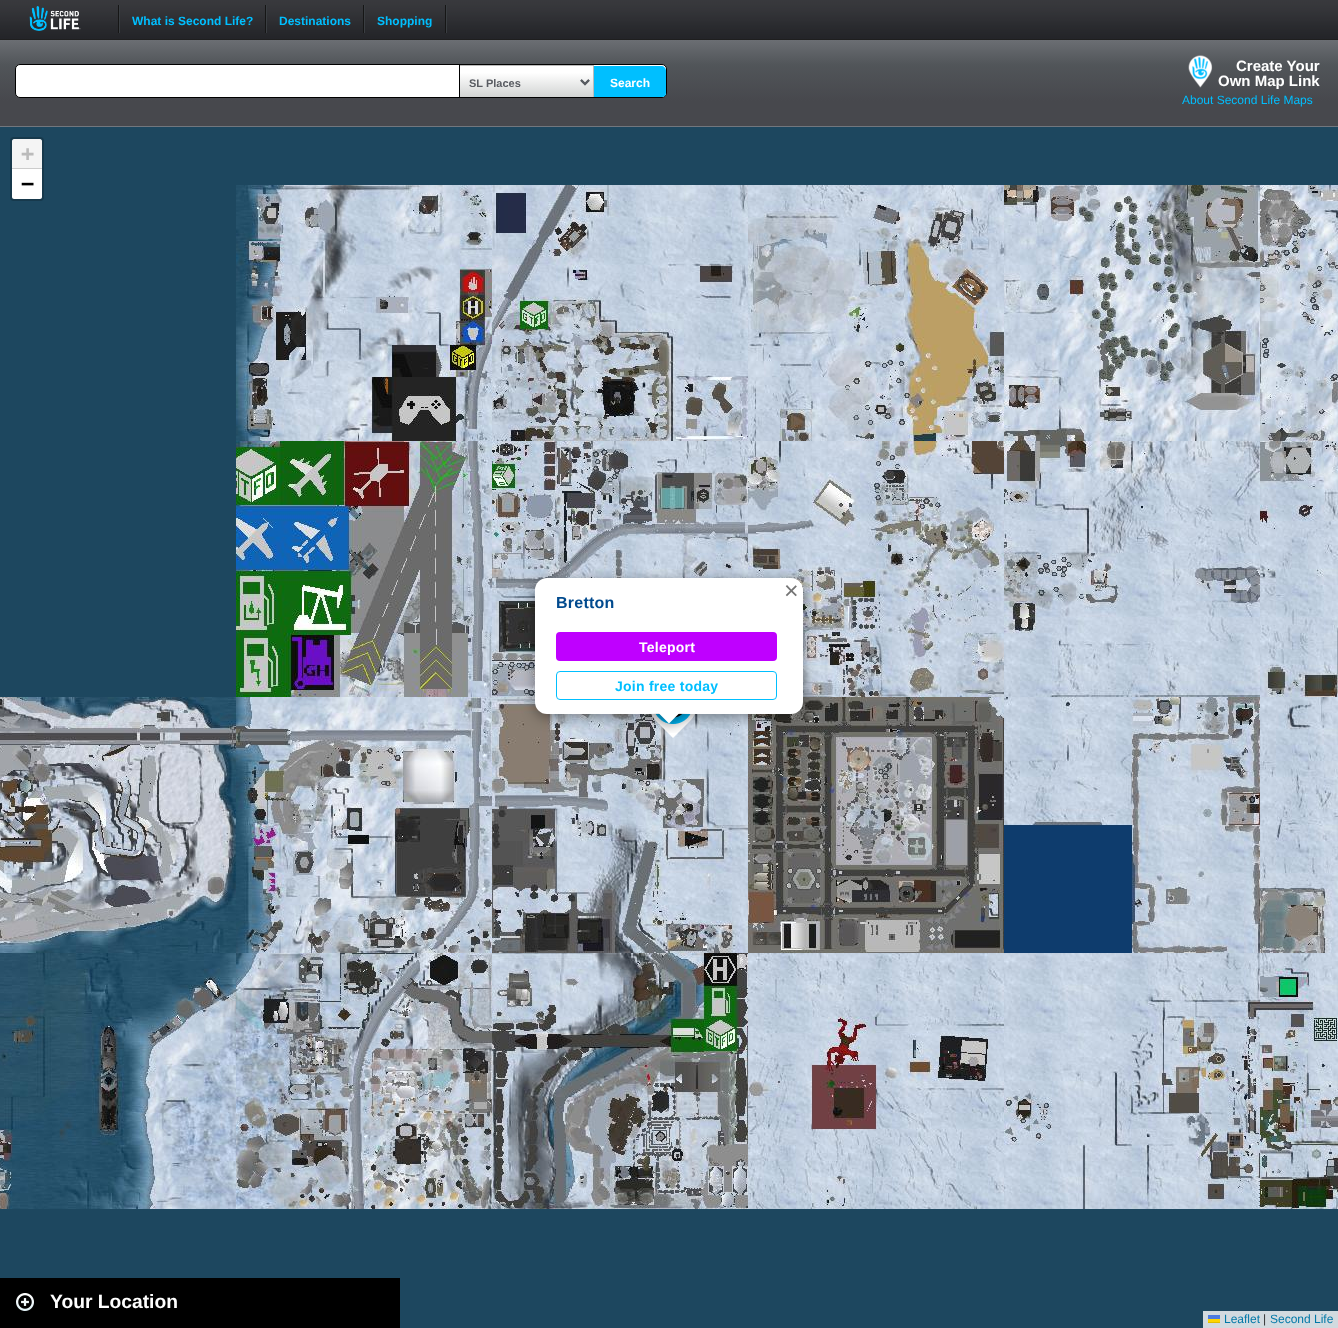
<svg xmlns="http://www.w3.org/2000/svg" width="1338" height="1328">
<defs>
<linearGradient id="g1" gradientUnits="userSpaceOnUse" x1="0" y1="126" x2="0" y2="40"><stop offset="0.29" stop-color="#47484d"/><stop offset="0.71" stop-color="#515559"/><stop offset="1" stop-color="#6b6e73"/></linearGradient>
<clipPath id="clip1"><rect x="16" y="65" width="650" height="32" rx="4"/></clipPath>
<clipPath id="clip2"><rect x="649" y="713" width="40" height="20"/></clipPath>
<clipPath id="clip3"><rect x="649" y="713" width="40" height="20"/></clipPath>
</defs>
<rect width="100%" height="100%" fill="#1d475f"/>
<image x="0" y="0" width="1338" height="40" href="media/1.png"/>
<image x="29" y="6" width="52" height="25" href="media/2.png"/>
<rect x="119" y="5" width="1" height="28" fill="#3a3e42"/>
<rect x="118" y="5" width="1" height="28" fill="#161616"/>
<text x="132" y="25" style="font-family:Liberation Sans;font-size:12px;font-weight:bold;fill:#00bfff">What is Second Life?</text>
<rect x="266" y="5" width="1" height="28" fill="#3a3e42"/>
<rect x="265" y="5" width="1" height="28" fill="#161616"/>
<text x="279" y="25" style="font-family:Liberation Sans;font-size:12px;font-weight:bold;fill:#00bfff">Destinations</text>
<rect x="364" y="5" width="1" height="28" fill="#3a3e42"/>
<rect x="363" y="5" width="1" height="28" fill="#161616"/>
<text x="377" y="25" style="font-family:Liberation Sans;font-size:12px;font-weight:bold;fill:#00bfff">Shopping</text>
<rect x="446" y="5" width="1" height="28" fill="#3a3e42"/>
<rect x="445" y="5" width="1" height="28" fill="#161616"/>
<rect y="40" width="1338" height="86" fill="url(#g1)"/>
<rect y="126" width="1338" height="1" fill="#72777e"/>
<rect x="15.5" y="64.5" width="651" height="33" rx="4.5" fill="#fff" stroke="#000"/>
<image x="460" y="66" width="133" height="31" href="media/3.png"/>
<rect x="459" y="65" width="135" height="1" fill="#bbb"/>
<rect x="593" y="65" width="1" height="32" fill="#bbb"/>
<rect x="459" y="65" width="1" height="32" fill="#000"/>
<path d="M581 80l4 4l4-4" fill="none" stroke="#595c62" stroke-width="2"/>
<text x="469" y="87" style="font-family:Liberation Sans;font-size:11px;font-weight:bold;fill:#595c62">SL Places</text>
<g clip-path="url(#clip1)">
<path d="M594 66h67c3 0 5 2 5 5v24c0 3-2 5-5 5h-67z" fill="#00bfff"/>
</g>
<text x="610" y="87" style="font-family:Liberation Sans;font-size:12px;font-weight:bold;fill:#fff">Search</text>
<image x="1188" y="55" width="25" height="33" href="media/4.png"/>
<text x="1236" y="71" style="font-family:Liberation Sans;font-size:15px;font-weight:bold;fill:#fff">Create Your</text>
<text x="1218" y="86" style="font-family:Liberation Sans;font-size:15px;font-weight:bold;fill:#fff">Own Map Link</text>
<text x="1182" y="104" style="font-family:Liberation Sans;font-size:12px;fill:#00bfff">About Second Life Maps</text>
<rect x="11" y="138" width="32" height="62" rx="3" fill="none" stroke="#17394c" stroke-width="2"/>
<path d="M14 139h26c1 0 2 1 2 2v28h-30v-28c0-1 1-2 2-2z" fill="#f4f4f4"/>
<rect x="12" y="168" width="30" height="1" fill="#ccc"/>
<text x="21" y="161" style="font-family:DejaVu Sans Mono;font-size:22px;font-weight:bold;fill:#bbb">+</text>
<path d="M12 169h30v28c0 1-1 2-2 2h-26c-1 0-2-1-2-2z" fill="#fff"/>
<text x="21" y="191" style="font-family:DejaVu Sans Mono;font-size:22px;font-weight:bold;fill:#000">−</text>
<rect x="1203" y="1311" width="135" height="17" fill="#d2dadf"/>
<text x="1224" y="1323" style="font-family:Liberation Sans;font-size:12px;fill:#0078a8">Leaflet</text>
<rect x="1208" y="1315" width="12" height="4" fill="#4c7be1"/>
<rect x="1208" y="1319" width="12" height="3" fill="#ffd500"/>
<rect x="1208" y="1322" width="12" height="1" fill="#e0bc00"/>
<text x="1263" y="1323" style="font-family:Liberation Sans;font-size:12px;fill:#333">|</text>
<text x="1270" y="1323" style="font-family:Liberation Sans;font-size:12px;fill:#0078a8">Second Life</text>
<image x="236" y="185" width="256" height="256" href="media/5.png"/>
<image x="492" y="185" width="256" height="256" href="media/6.png"/>
<image x="748" y="185" width="256" height="256" href="media/7.png"/>
<image x="1004" y="185" width="256" height="256" href="media/8.png"/>
<image x="1260" y="185" width="78" height="256" href="media/9.png"/>
<image x="236" y="441" width="256" height="256" href="media/10.png"/>
<image x="492" y="441" width="256" height="256" href="media/11.png"/>
<image x="748" y="441" width="256" height="256" href="media/12.png"/>
<image x="1004" y="441" width="256" height="256" href="media/13.png"/>
<image x="1260" y="441" width="78" height="256" href="media/14.png"/>
<image x="0" y="697" width="236" height="256" href="media/15.png"/>
<image x="236" y="697" width="256" height="256" href="media/16.png"/>
<image x="492" y="697" width="256" height="256" href="media/17.png"/>
<image x="748" y="697" width="256" height="256" href="media/18.png"/>
<image x="1004" y="697" width="256" height="256" href="media/19.png"/>
<image x="1260" y="697" width="78" height="256" href="media/20.png"/>
<image x="0" y="953" width="236" height="256" href="media/21.png"/>
<image x="236" y="953" width="256" height="256" href="media/22.png"/>
<image x="492" y="953" width="256" height="256" href="media/23.png"/>
<image x="748" y="953" width="256" height="256" href="media/24.png"/>
<image x="1004" y="953" width="256" height="256" href="media/25.png"/>
<image x="1260" y="953" width="78" height="256" href="media/26.png"/>
<image x="651" y="714" width="44" height="24" href="media/27.png"/>
<rect x="535" y="581" width="268" height="136" rx="12" fill="#00000066" filter="blur(7px)"/>
<rect x="535" y="578" width="268" height="136" rx="12" fill="#fff"/>
<text x="784" y="599" style="font-family:Liberation Sans;font-size:25px;fill:#757575">×</text>
<text x="556" y="608" style="font-family:Liberation Sans;font-size:16px;font-weight:bold;letter-spacing:0.25px;fill:#014a8e">Bretton</text>
<rect x="556" y="632" width="221" height="29" rx="4" fill="#bf00ff"/>
<text x="639" y="652" style="font-family:Liberation Sans;font-size:14px;font-weight:bold;letter-spacing:0.25px;fill:#fff">Teleport</text>
<rect x="556.5" y="671.5" width="220" height="28" rx="3.5" fill="none" stroke="#00bfff"/>
<text x="615" y="691" style="font-family:Liberation Sans;font-size:14px;font-weight:bold;letter-spacing:0.25px;fill:#00bfff">Join free today</text>
<g clip-path="url(#clip2)">
<rect x="661" y="706" width="17" height="17" fill="#00000066" filter="blur(7px)"/>
</g>
<g clip-path="url(#clip3)">
<path d="M669 699.5l12 12l-12 12l-12-12z" fill="#fff"/>
</g>
<rect y="1278" width="400" height="50" fill="#000"/>
<image x="16" y="1293" width="18" height="18" href="media/28.png"/>
<text x="50" y="1308" style="font-family:Liberation Sans;font-size:19.25px;font-weight:bold;fill:#fff">Your Location</text>
</svg>
